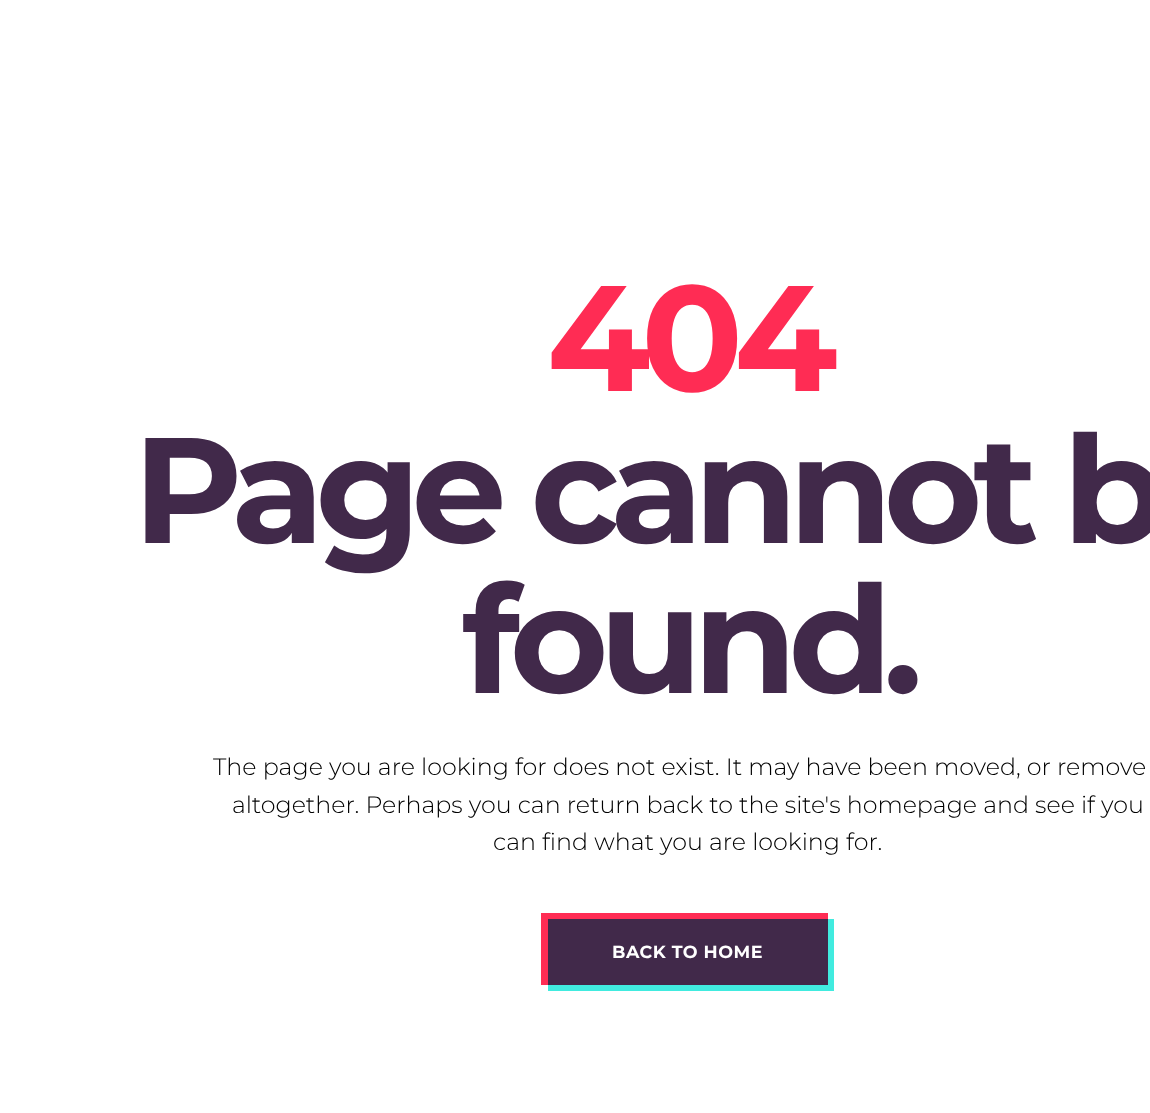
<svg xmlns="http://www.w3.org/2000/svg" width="1150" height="1113">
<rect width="100%" height="100%" fill="#fff"/>
<text x="547" y="391" style="font-family:Montserrat;font-size:150px;font-weight:bold;letter-spacing:-9px;fill:#ff2c54">404</text>
<text x="133" y="543" style="font-family:Montserrat;font-size:150px;font-weight:bold;letter-spacing:-9px;fill:#41294a">Page cannot b</text>
<text x="462" y="693" style="font-family:Montserrat;font-size:150px;font-weight:bold;letter-spacing:-9px;fill:#41294a">found.</text>
<text x="213" y="775" style="font-family:Montserrat;font-size:23.75px;font-weight:300;fill:#000">The page you are looking for does not exist. It may have been moved, or remove</text>
<text x="232" y="813" style="font-family:Montserrat;font-size:23.75px;font-weight:300;fill:#000">altogether. Perhaps you can return back to the site's homepage and see if you</text>
<text x="493" y="850" style="font-family:Montserrat;font-size:23.75px;font-weight:300;fill:#000">can find what you are looking for.</text>
<rect x="548" y="919" width="286" height="72" fill="#41ebdf"/>
<rect x="541" y="913" width="287" height="72" fill="#ff2c54"/>
<rect x="548" y="919" width="280" height="66" fill="#41294a"/>
<text x="612" y="958" style="font-family:Montserrat;font-size:17.5px;font-weight:bold;letter-spacing:0.5px;fill:#fff">BACK TO HOME</text>
</svg>
